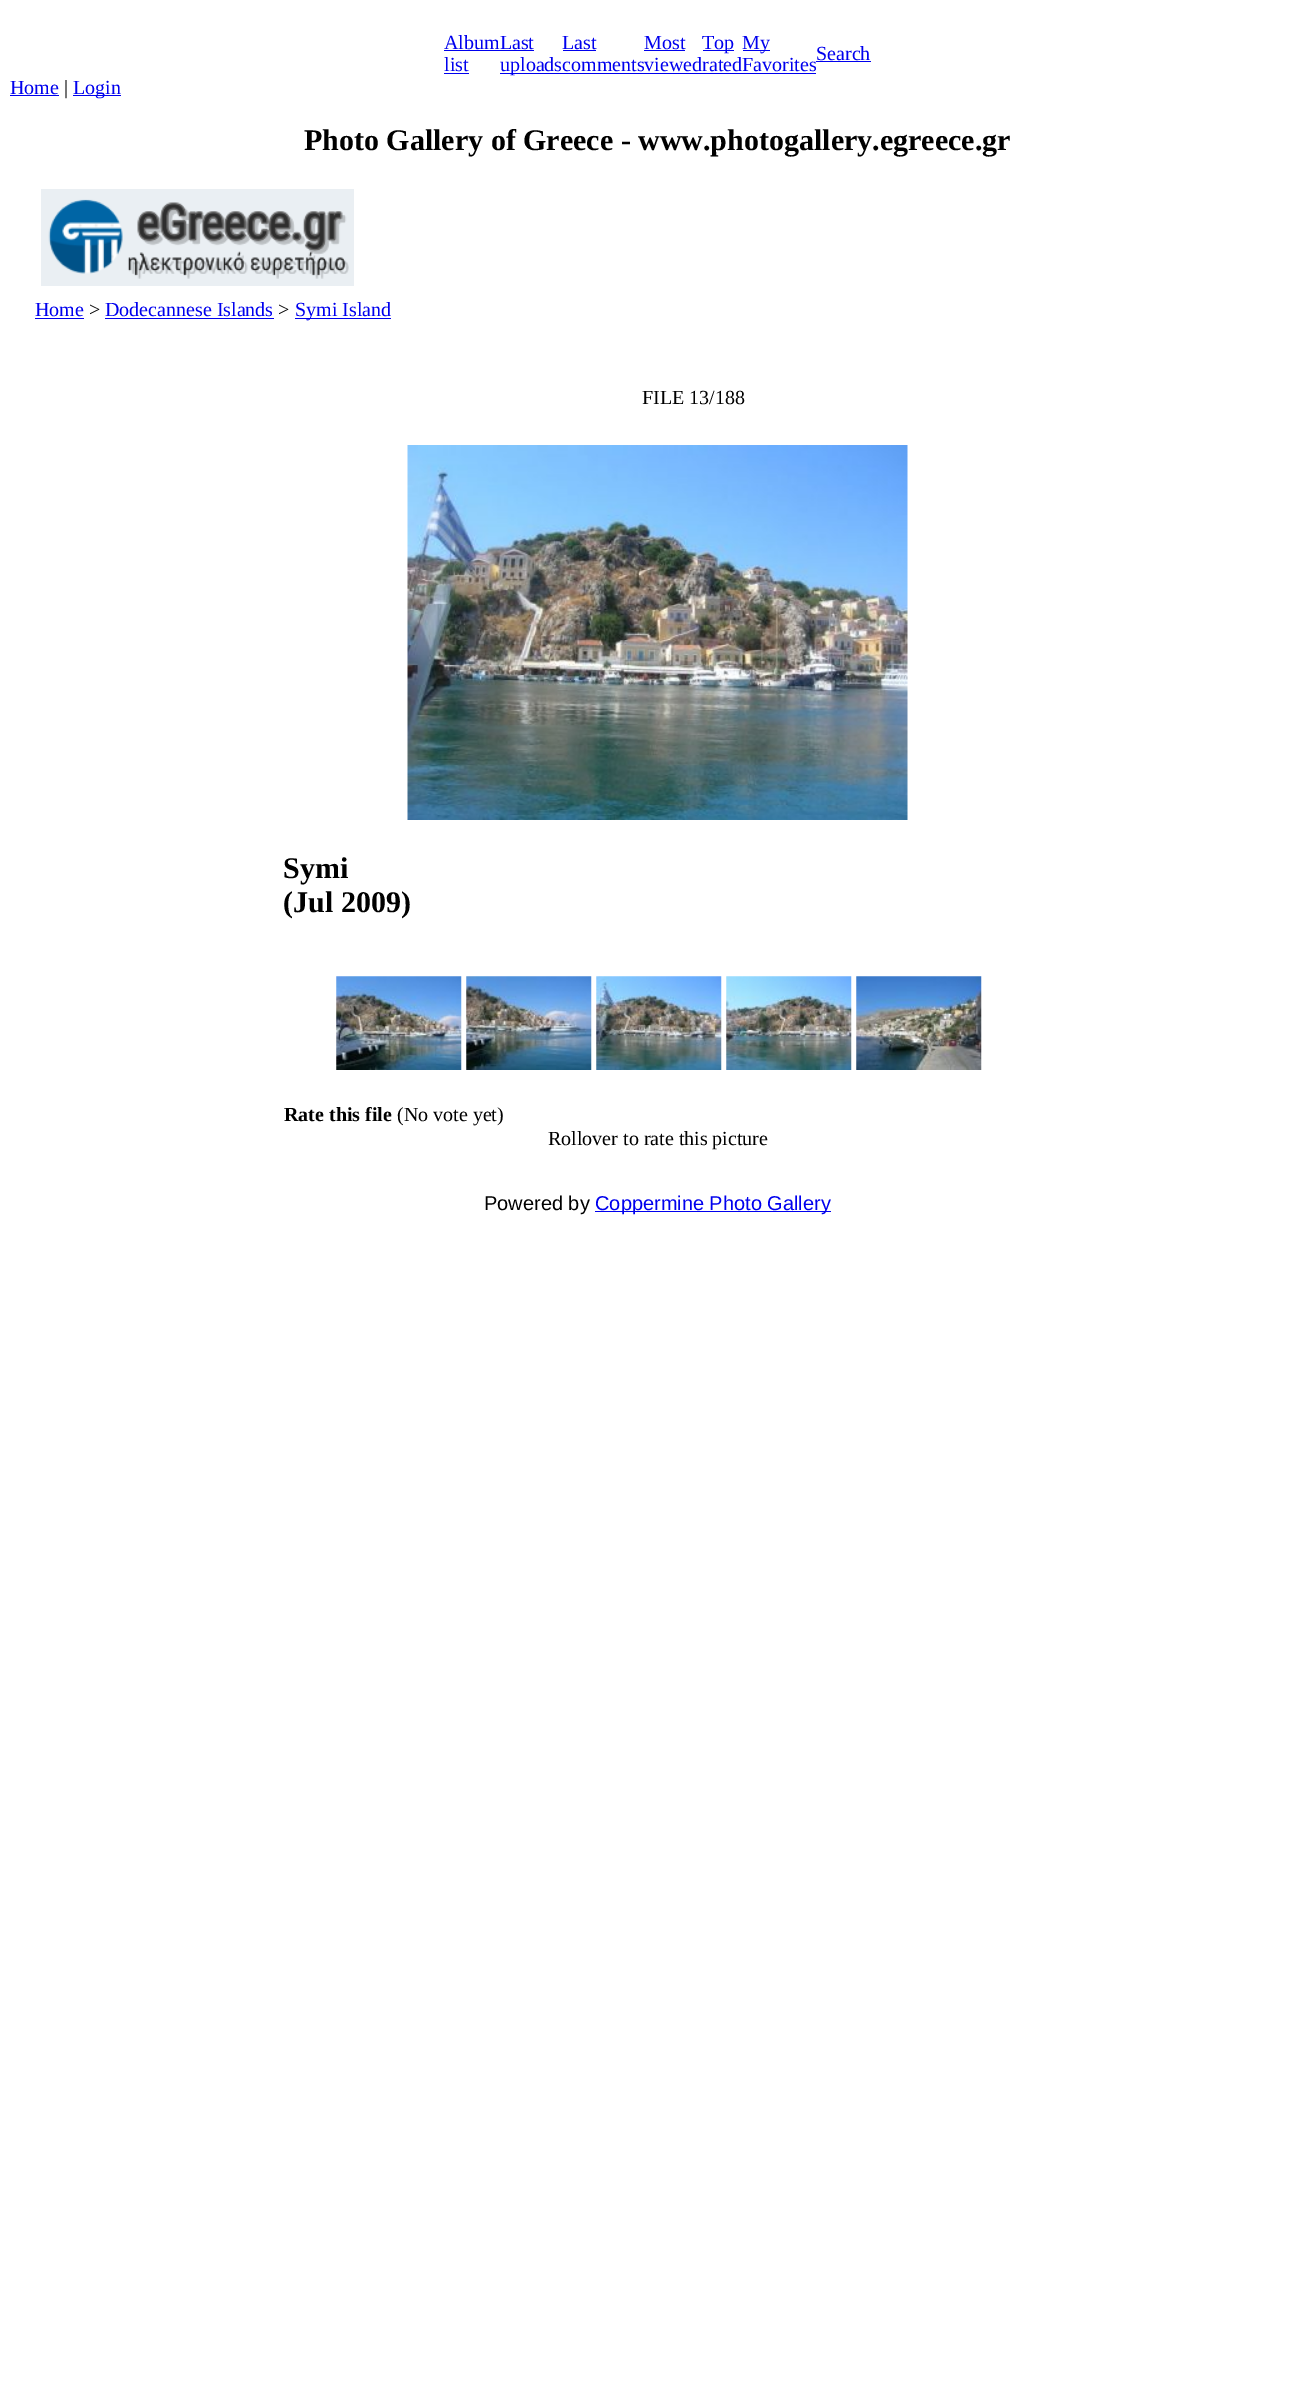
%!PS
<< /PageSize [1314 2408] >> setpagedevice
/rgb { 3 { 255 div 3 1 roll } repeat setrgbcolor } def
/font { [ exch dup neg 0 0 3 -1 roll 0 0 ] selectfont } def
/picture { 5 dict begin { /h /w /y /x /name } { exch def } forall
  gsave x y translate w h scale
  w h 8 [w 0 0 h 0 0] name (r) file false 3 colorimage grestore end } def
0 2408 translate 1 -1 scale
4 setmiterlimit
255 255 255 rgb
0 0 1314 2408 rectfill
[
  [444 50 90 1 0 0 238]
  [444 73 25 1 0 0 238]
  [563 50 33 1 0 0 238]
  [644 50 41 1 0 0 238]
  [703 50 31 1 0 0 238]
  [743 50 27 1 0 0 238]
  [816 61 55 1 0 0 238]
  [500 73 316 1 0 0 238]
  [10 95 49 1 0 0 238]
  [73 95 48 1 0 0 238]
  [41 189 313 97 234 239 243]
] { aload pop rgb rectfill } forall
(img/1.rgb) 48 199 301 80 picture
[
  [35 318 49 1 0 0 238]
  [105 318 169 1 0 0 238]
  [295 318 96 1 0 0 238]
] { aload pop rgb rectfill } forall
(img/2.rgb) 407 445 501 375 picture
(img/3.rgb) 336 976 126 94 picture
(img/4.rgb) 466 976 126 94 picture
(img/5.rgb) 596 976 126 94 picture
(img/6.rgb) 726 976 126 94 picture
(img/7.rgb) 856 976 126 94 picture
595 1211 236 1 rectfill
/LiberationSerif-Regular 20 font
[
  [(AlbumLast) 444 49]
  [(list) 444 71]
  [(Last) 562 49]
  [(Most) 644 49]
  [(Top) 702 49]
  [(My) 742 49]
  [(Search) 816 60]
  [(uploadscommentsviewedratedFavorites) 500 71]
  [(Home) 10 94]
] { aload pop moveto show } forall
0 0 0 rgb
64 94 moveto (|) show
0 0 238 rgb
73 94 moveto (Login) show
/LiberationSerif-Bold 30 font
0 0 0 rgb
304 150 moveto (Photo Gallery of Greece - www.photogallery.egreece.gr) show
/LiberationSerif-Regular 20 font
0 0 238 rgb
35 316 moveto (Home) show
0 0 0 rgb
89 316 moveto (>) show
0 0 238 rgb
105 316 moveto (Dodecannese Islands) show
0 0 0 rgb
278 316 moveto (>) show
0 0 238 rgb
295 316 moveto (Symi Island) show
0 0 0 rgb
642 404 moveto (FILE 13/188) show
/LiberationSerif-Bold 30 font
283 878 moveto (Symi) show
283 912 moveto (\(Jul 2009\)) show
/LiberationSerif-Bold 20 font
284 1121 moveto (Rate this file) show
/LiberationSerif-Regular 20 font
397 1121 moveto (\(No vote yet\)) show
548 1145 moveto (Rollover to rate this picture) show
/LiberationSans-Regular 20 font
484 1210 moveto (Powered by) show
0 0 238 rgb
595 1210 moveto (Coppermine Photo Gallery) show
showpage
